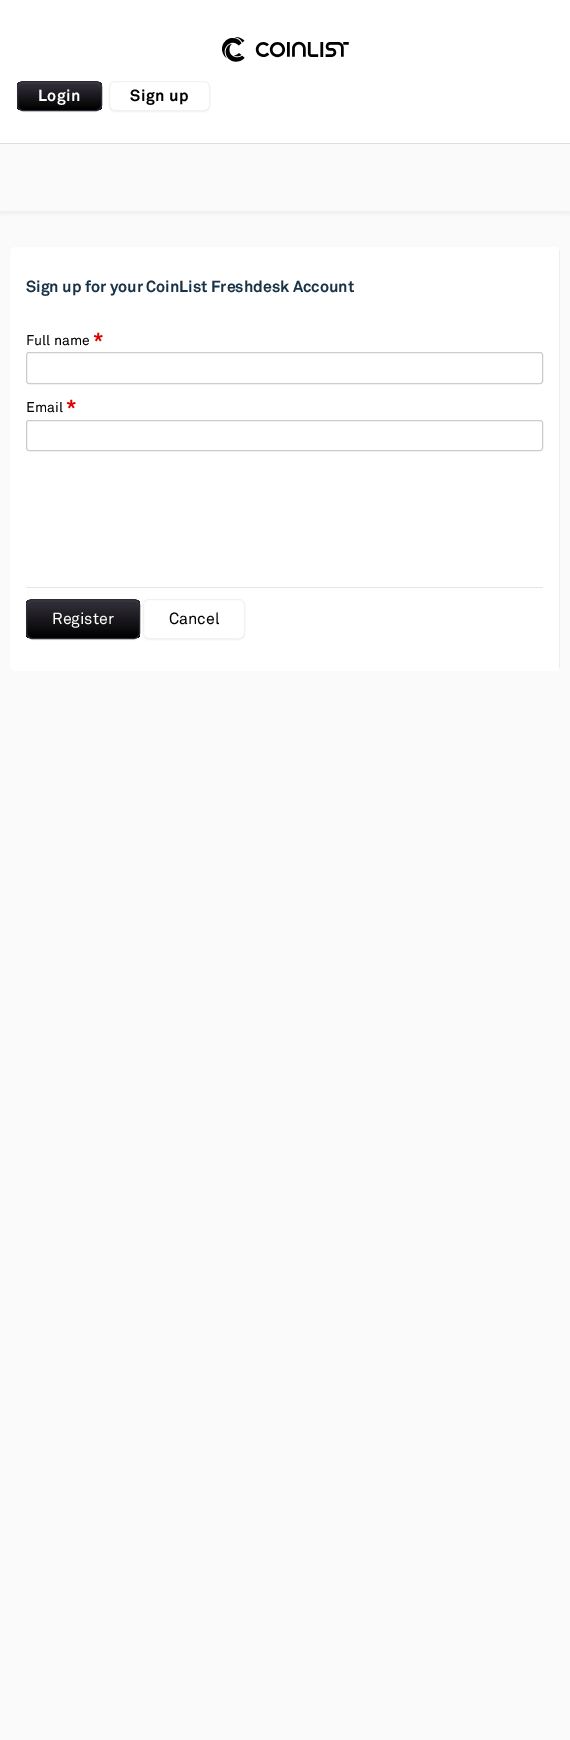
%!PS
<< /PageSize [570 1740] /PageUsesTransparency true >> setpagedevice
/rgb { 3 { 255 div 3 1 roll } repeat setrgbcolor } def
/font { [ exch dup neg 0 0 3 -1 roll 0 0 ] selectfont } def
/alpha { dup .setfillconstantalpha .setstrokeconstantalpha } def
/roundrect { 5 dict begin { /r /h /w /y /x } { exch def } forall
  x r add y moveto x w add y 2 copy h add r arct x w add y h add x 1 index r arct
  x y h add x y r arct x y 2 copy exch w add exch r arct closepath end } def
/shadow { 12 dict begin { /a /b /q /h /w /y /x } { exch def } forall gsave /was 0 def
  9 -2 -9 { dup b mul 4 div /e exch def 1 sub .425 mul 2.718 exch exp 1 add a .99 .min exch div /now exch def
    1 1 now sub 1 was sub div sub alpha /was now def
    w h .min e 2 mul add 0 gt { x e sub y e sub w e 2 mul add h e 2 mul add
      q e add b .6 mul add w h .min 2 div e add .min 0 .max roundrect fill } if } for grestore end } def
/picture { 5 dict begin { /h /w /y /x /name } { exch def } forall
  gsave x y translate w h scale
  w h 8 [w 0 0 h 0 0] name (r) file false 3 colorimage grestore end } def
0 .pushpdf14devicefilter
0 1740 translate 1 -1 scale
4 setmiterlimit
250 250 250 rgb
0 0 570 1740 rectfill
255 255 255 rgb
0 0 570 143 rectfill
218 223 227 rgb
0 143 570 1 rectfill
(img/1.rgb) 222 37 127 25 picture
22 29 37 rgb
17 82 85 30 6 0.5 0.05 shadow
gsave
17 81 85 30 6 roundrect clip newpath
gsave 17 82 moveto 102 82 lineto 102 110 lineto 17 110 lineto closepath clip newpath
<< /ShadingType 2 /ColorSpace /DeviceRGB /Coords [60 82 60 110] /Extend [true true] /Function << /FunctionType 3 /Domain [0 1] /Functions [<< /FunctionType 2 /Domain [0 1] /C0 [0.18 0.169 0.204] /C1 [0.18 0.169 0.204] /N 1 >> << /FunctionType 2 /Domain [0 1] /C0 [0.18 0.169 0.204] /C1 [0 0 0] /N 1 >> << /FunctionType 2 /Domain [0 1] /C0 [0 0 0] /C1 [0 0 0] /N 1 >>] /Bounds [0.14 0.98] /Encode [0 1 0 1 0 1] >> >> shfill grestore
grestore
56 54 62 rgb
23 84 moveto 96 84 lineto 99 84 101 86 101 89 curveto 101 79 92 82 84 82 curveto 35 82 lineto 27 82 18 79 18 89 curveto 18 86 20 84 23 84 curveto closepath fill
46 43 52 rgb
17.5 81.5 84 29 5.5 roundrect stroke
22 29 37 rgb
109 82 101 30 6 0.5 0.05 shadow
255 255 255 rgb
109.5 81.5 100 29 5.5 roundrect gsave fill grestore
242 242 242 rgb
stroke
gsave
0 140 moveto 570 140 lineto 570 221 lineto 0 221 lineto closepath 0 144 moveto 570 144 lineto 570 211 lineto 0 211 lineto closepath eoclip newpath
238 238 238 rgb
0 147 570 67 0 2 1 shadow
grestore
255 255 255 rgb
10 247 550 424 6 roundrect fill
234 237 243 rgb
559 250 1 418 rectfill
204 204 204 rgb
26.5 352.5 516 31 2.5 roundrect stroke
26.5 420.5 516 30 2.5 roundrect stroke
229 229 229 rgb
26 587 517 1 rectfill
22 29 37 rgb
26 600 114 40 6 0.5 0.05 shadow
gsave
26 599 114 40 6 roundrect clip newpath
gsave 26 600 moveto 140 600 lineto 140 638 lineto 26 638 lineto closepath clip newpath
<< /ShadingType 2 /ColorSpace /DeviceRGB /Coords [83 600 83 638] /Extend [true true] /Function << /FunctionType 3 /Domain [0 1] /Functions [<< /FunctionType 2 /Domain [0 1] /C0 [0.18 0.169 0.204] /C1 [0.18 0.169 0.204] /N 1 >> << /FunctionType 2 /Domain [0 1] /C0 [0.18 0.169 0.204] /C1 [0 0 0] /N 1 >> << /FunctionType 2 /Domain [0 1] /C0 [0 0 0] /C1 [0 0 0] /N 1 >>] /Bounds [0.14 0.98] /Encode [0 1 0 1 0 1] >> >> shfill grestore
grestore
56 54 62 rgb
32 602 moveto 134 602 lineto 137 602 139 604 139 607 curveto 139 605 lineto 139 602 137 600 134 600 curveto 32 600 lineto 29 600 27 602 27 605 curveto 27 607 lineto 27 604 29 602 32 602 curveto closepath fill
46 43 52 rgb
26.5 599.5 113 39 5.5 roundrect stroke
22 29 37 rgb
143 600 102 40 6 0.5 0.05 shadow
255 255 255 rgb
143.5 599.5 101 39 5.5 roundrect gsave fill grestore
242 242 242 rgb
stroke
/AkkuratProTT-Bold 16 font
255 255 255 rgb
38 101 moveto 0.5 0 (Login) ashow
0 0 0 rgb
130 101 moveto 0.5 0 (Sign up) ashow
24 50 71 rgb
26 292 moveto (Sign up for your CoinList Freshdesk Account) show
/AkkuratProTT-Regular 14 font
0 0 0 rgb
26 345 moveto (Full name) show
/AkkuratProTT-Bold 20 font
221 0 0 rgb
93 347 moveto (*) show
/AkkuratProTT-Regular 14 font
0 0 0 rgb
26 412 moveto (Email) show
/AkkuratProTT-Bold 20 font
221 0 0 rgb
66 414 moveto (*) show
/AkkuratProTT-Regular 16 font
255 255 255 rgb
52 624 moveto (Register) show
0 0 0 rgb
169 624 moveto (Cancel) show
.poppdf14devicefilter showpage
